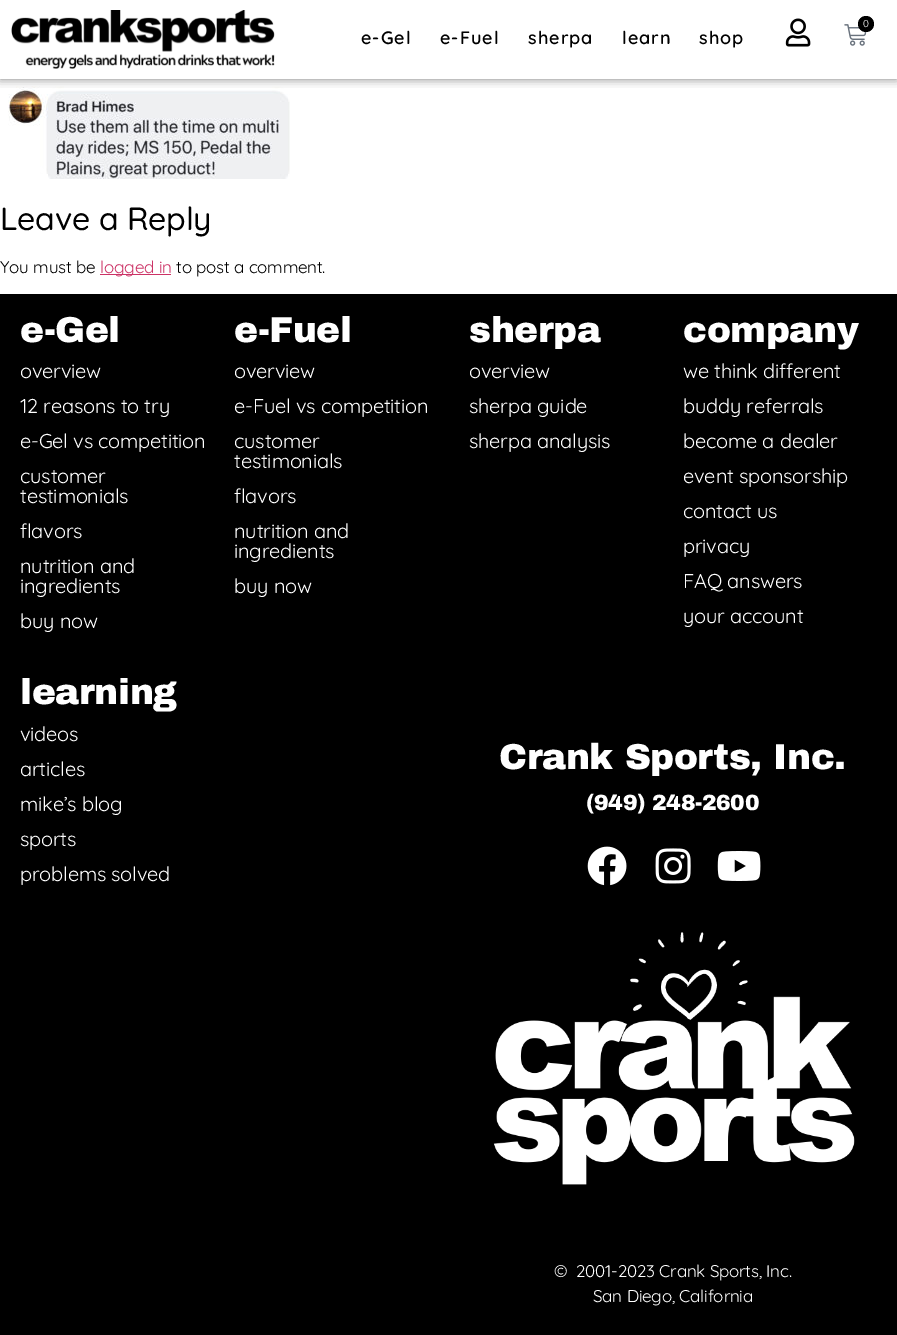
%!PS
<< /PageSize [897 1335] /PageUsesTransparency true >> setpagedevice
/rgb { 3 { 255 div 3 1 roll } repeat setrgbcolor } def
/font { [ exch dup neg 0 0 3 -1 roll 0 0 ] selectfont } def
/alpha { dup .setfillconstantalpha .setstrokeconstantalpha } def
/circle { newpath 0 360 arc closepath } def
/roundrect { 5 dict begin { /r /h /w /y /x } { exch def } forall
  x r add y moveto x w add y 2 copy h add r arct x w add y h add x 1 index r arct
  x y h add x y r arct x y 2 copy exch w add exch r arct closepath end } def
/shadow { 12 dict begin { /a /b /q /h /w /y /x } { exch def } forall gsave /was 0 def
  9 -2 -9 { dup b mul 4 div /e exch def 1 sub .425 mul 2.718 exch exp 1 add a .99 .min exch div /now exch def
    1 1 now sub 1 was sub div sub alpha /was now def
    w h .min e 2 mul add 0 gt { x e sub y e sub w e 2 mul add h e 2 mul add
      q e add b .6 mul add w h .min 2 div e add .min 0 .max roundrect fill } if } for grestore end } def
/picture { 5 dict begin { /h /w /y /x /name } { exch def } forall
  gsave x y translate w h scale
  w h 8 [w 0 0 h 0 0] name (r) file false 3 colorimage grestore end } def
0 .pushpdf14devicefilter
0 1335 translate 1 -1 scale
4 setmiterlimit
255 255 255 rgb
0 0 897 1335 rectfill
(img/4.rgb) 8 86 282 93 picture
gsave
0 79 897 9 rectclip
0 0 0 rgb
0 0 897 79 0 5 0.5 shadow
grestore
(img/1.rgb) 11 10 264 59 picture
(img/2.rgb) 785 18 26 29 picture
(img/3.rgb) 844 24 23 22 picture
0 0 0 rgb
866 24 8 circle fill
204 51 102 rgb
100 274 71 1 rectfill
0 0 0 rgb
0 294 897 1041 rectfill
(img/5.rgb) 587 846 40 40 picture
(img/6.rgb) 655 848 36 36 picture
(img/7.rgb) 717 851 44 30 picture
(img/8.rgb) 493 932 362 253 picture
/Quicksand-Regular 10 font
255 255 255 rgb
863 27 moveto -0.2 0 (0) ashow
/Quicksand-SemiBold 18 font
0 0 0 rgb
361 44 moveto 1 0 (e-Gel) ashow
440 44 moveto 1 0 (e-Fuel) ashow
528 44 moveto 1 0 (sherpa) ashow
622 44 moveto 1 0 (learn) ashow
699 44 moveto 1 0 (shop) ashow
/Quicksand-Medium 32 font
0 230 moveto -0.2 0 (Leave a Reply) ashow
/Quicksand-Regular 17 font
0 273 moveto -0.2 0 (You must be) ashow
204 51 102 rgb
100 273 moveto -0.2 0 (logged in) ashow
0 0 0 rgb
176 273 moveto -0.2 0 (to post a comment.) ashow
/ArchivoBlack-Black 36 font
255 255 255 rgb
20 342 moveto -0.4 0 (e-Gel) ashow
/Quicksand-Regular 20 font
20 378 moveto -0.2 0 (overview) ashow
20 413 moveto -0.2 0 (12 reasons to try) ashow
20 448 moveto -0.2 0 (e-Gel vs competition) ashow
20 483 moveto -0.2 0 (customer) ashow
20 503 moveto -0.2 0 (testimonials) ashow
20 538 moveto -0.2 0 (flavors) ashow
20 573 moveto -0.2 0 (nutrition and) ashow
20 593 moveto -0.2 0 (ingredients) ashow
20 628 moveto -0.2 0 (buy now) ashow
/ArchivoBlack-Black 36 font
234 342 moveto -0.4 0 (e-Fuel) ashow
/Quicksand-Regular 20 font
234 378 moveto -0.2 0 (overview) ashow
234 413 moveto -0.2 0 (e-Fuel vs competition) ashow
234 448 moveto -0.2 0 (customer) ashow
234 468 moveto -0.2 0 (testimonials) ashow
234 503 moveto -0.2 0 (flavors) ashow
234 538 moveto -0.2 0 (nutrition and) ashow
234 558 moveto -0.2 0 (ingredients) ashow
234 593 moveto -0.2 0 (buy now) ashow
/ArchivoBlack-Black 36 font
20 704 moveto -0.4 0 (learning) ashow
/Quicksand-Regular 20 font
20 741 moveto -0.2 0 (videos) ashow
20 776 moveto -0.2 0 (articles) ashow
20 811 moveto -0.2 0 (mike’s blog) ashow
20 846 moveto -0.2 0 (sports) ashow
20 881 moveto -0.2 0 (problems solved) ashow
/ArchivoBlack-Black 36 font
469 342 moveto -0.4 0 (sherpa) ashow
/Quicksand-Regular 20 font
469 378 moveto -0.2 0 (overview) ashow
469 413 moveto -0.2 0 (sherpa guide) ashow
469 448 moveto -0.2 0 (sherpa analysis) ashow
/ArchivoBlack-Black 36 font
683 342 moveto -0.4 0 (company) ashow
/Quicksand-Regular 20 font
683 378 moveto -0.2 0 (we think different) ashow
683 413 moveto -0.2 0 (buddy referrals) ashow
683 448 moveto -0.2 0 (become a dealer) ashow
683 483 moveto -0.2 0 (event sponsorship) ashow
683 518 moveto -0.2 0 (contact us) ashow
683 553 moveto -0.2 0 (privacy) ashow
683 588 moveto -0.2 0 (FAQ answers) ashow
683 623 moveto -0.2 0 (your account) ashow
/ArchivoBlack-Black 36 font
499 769 moveto -0.4 0 (Crank Sports, Inc.) ashow
/ArchivoBlack-Black 22 font
586 810 moveto -0.4 0 (\(949\) 248-2600) ashow
/Quicksand-Regular 17 font
554 1277 moveto -0.2 0 (©  2001-2023 Crank Sports, Inc.) ashow
593 1302 moveto -0.2 0 (San Diego, California) ashow
.poppdf14devicefilter showpage
